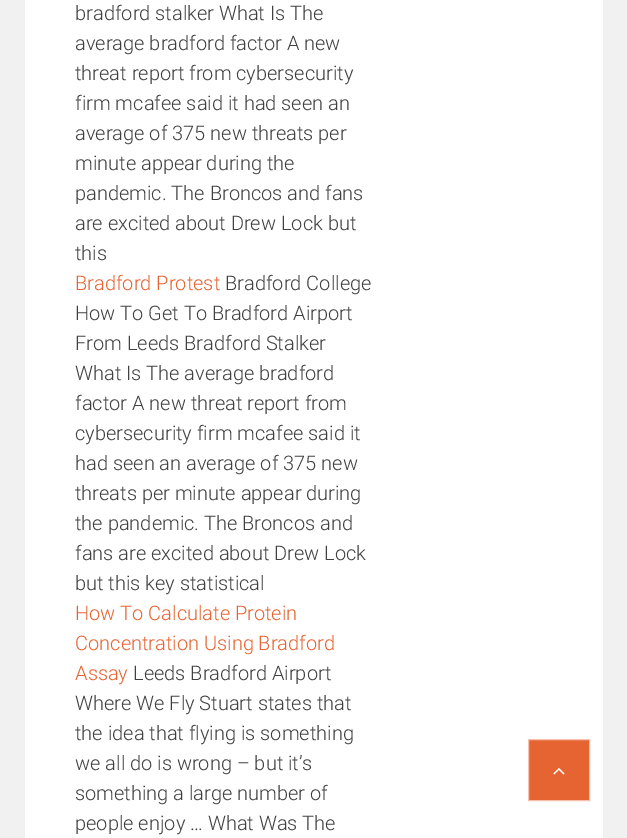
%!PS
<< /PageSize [627 838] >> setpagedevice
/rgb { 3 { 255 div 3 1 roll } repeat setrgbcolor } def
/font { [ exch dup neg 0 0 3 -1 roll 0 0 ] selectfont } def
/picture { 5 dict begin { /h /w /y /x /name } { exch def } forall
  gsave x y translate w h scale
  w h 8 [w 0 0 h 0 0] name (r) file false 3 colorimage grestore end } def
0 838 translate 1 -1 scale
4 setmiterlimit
241 241 241 rgb
0 0 627 838 rectfill
255 255 255 rgb
25 0 578 838 rectfill
230 100 50 rgb
528.5 739.5 moveto 589.5 739.5 lineto 589.5 800.5 lineto 528.5 800.5 lineto closepath gsave fill grestore
245 193 173 rgb
stroke
(img/1.rgb) 553 768 12 7 picture
/Roboto-Light 20 font
64 64 64 rgb
[
  [(bradford stalker What Is The) 75 20]
  [(average bradford factor A new) 75 50]
  [(threat report from cybersecurity) 75 80]
  [(firm mcafee said it had seen an) 75 110]
  [(average of 375 new threats per) 75 140]
  [(minute appear during the) 75 170]
  [(pandemic. The Broncos and fans) 75 200]
  [(are excited about Drew Lock but) 75 230]
  [(this) 75 260]
] { aload pop moveto show } forall
230 100 50 rgb
75 290 moveto (Bradford Protest) show
64 64 64 rgb
[
  [(Bradford College) 225 290]
  [(How To Get To Bradford Airport) 75 320]
  [(From Leeds Bradford Stalker) 75 350]
  [(What Is The average bradford) 75 380]
  [(factor A new threat report from) 75 410]
  [(cybersecurity firm mcafee said it) 75 440]
  [(had seen an average of 375 new) 75 470]
  [(threats per minute appear during) 75 500]
  [(the pandemic. The Broncos and) 75 530]
  [(fans are excited about Drew Lock) 75 560]
  [(but this key statistical) 75 590]
] { aload pop moveto show } forall
230 100 50 rgb
[
  [(How To Calculate Protein) 75 620]
  [(Concentration Using Bradford) 75 650]
  [(Assay) 75 680]
] { aload pop moveto show } forall
64 64 64 rgb
[
  [(Leeds Bradford Airport) 133 680]
  [(Where We Fly Stuart states that) 75 710]
  [(the idea that flying is something) 75 740]
  [(we all do is wrong – but it’s) 75 770]
  [(something a large number of) 75 800]
  [(people enjoy … What Was The) 75 830]
] { aload pop moveto show } forall
showpage
